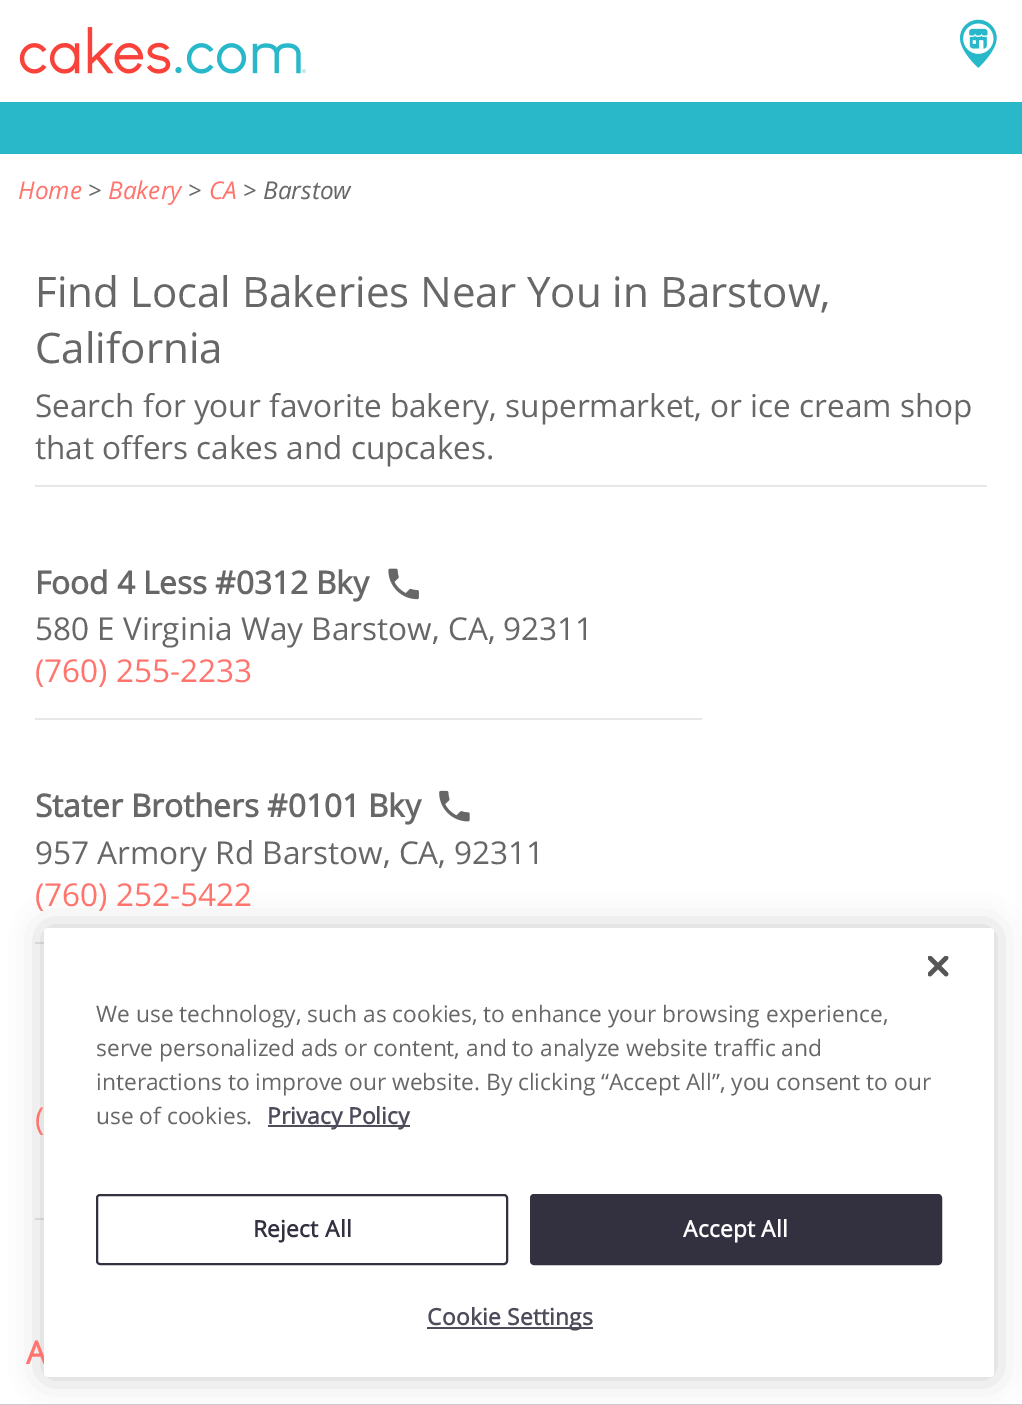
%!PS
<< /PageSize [1022 1405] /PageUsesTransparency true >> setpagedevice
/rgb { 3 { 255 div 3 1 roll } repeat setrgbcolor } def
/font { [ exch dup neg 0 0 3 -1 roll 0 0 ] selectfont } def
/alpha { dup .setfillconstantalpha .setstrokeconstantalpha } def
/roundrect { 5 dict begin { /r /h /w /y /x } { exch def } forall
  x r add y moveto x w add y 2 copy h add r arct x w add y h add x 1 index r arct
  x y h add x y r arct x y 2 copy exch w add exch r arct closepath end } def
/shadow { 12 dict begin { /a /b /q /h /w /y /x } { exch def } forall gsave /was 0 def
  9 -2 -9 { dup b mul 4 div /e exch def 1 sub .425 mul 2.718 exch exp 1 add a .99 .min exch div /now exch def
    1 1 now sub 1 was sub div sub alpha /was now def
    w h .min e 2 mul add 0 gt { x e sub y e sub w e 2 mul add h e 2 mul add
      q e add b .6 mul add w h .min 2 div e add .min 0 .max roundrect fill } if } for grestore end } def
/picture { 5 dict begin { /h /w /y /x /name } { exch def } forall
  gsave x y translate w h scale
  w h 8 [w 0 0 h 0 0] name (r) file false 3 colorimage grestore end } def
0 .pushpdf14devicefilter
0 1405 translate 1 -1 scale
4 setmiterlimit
255 255 255 rgb
0 0 1022 1405 rectfill
(img/1.rgb) 19 27 287 47 picture
(img/2.rgb) 959 19 38 49 picture
41 183 202 rgb
0 102 1022 52 rectfill
231 231 231 rgb
35 485 952 2 rectfill
(img/3.rgb) 388 568 31 32 picture
35 718 667 2 rectfill
(img/4.rgb) 439 790 31 32 picture
[
  [35 942 9 2 231 231 231]
  [35 1218 9 2 231 231 231]
  [0 1404 1022 1 204 204 204]
] { aload pop rgb rectfill } forall
0 0 0 rgb
44 928 950 449 4 16 0.2 shadow
/OpenSans-Italic 24.5 font
255 117 110 rgb
18 199 moveto (Home) show
103 103 103 rgb
88 199 moveto (>) show
255 117 110 rgb
108 199 moveto (Bakery) show
103 103 103 rgb
188 199 moveto (>) show
255 117 110 rgb
209 199 moveto (CA) show
103 103 103 rgb
243 199 moveto (>) show
263 199 moveto (Barstow) show
/OpenSans-Regular 42 font
35 307 moveto (Find Local Bakeries Near You in Barstow,) show
35 363 moveto (California) show
/OpenSans-Regular 31.5 font
35 417 moveto (Search for your favorite bakery, supermarket, or ice cream shop) show
35 459 moveto (that offers cakes and cupcakes.) show
/OpenSans-Bold 31.5 font
35 594 moveto (Food 4 Less #0312 Bky) show
/OpenSans-Regular 31.5 font
35 640 moveto (580 E Virginia Way Barstow, CA, 92311) show
255 117 110 rgb
35 682 moveto (\(760\) 255-2233) show
/OpenSans-Bold 31.5 font
103 103 103 rgb
35 817 moveto (Stater Brothers #0101 Bky) show
/OpenSans-Regular 31.5 font
35 864 moveto (957 Armory Rd Barstow, CA, 92311) show
255 117 110 rgb
35 906 moveto (\(760\) 252-5422) show
35 1130 moveto (\() show
/OpenSans-Bold 31.5 font
26 1364 moveto (A) show
255 255 255 rgb
44 928 950 449 4 roundrect fill
(img/5.rgb) 928 956 21 21 picture
78 75 91 rgb
427 1327 166 2 rectfill
/OpenSans-Bold 22.75 font
427 1325 moveto 0.25 0 (Cookie Settings) ashow
51 48 64 rgb
531 1195 410 69 3 roundrect gsave fill grestore
2 setlinewidth
stroke
255 255 255 rgb
683 1237 moveto 0.25 0 (Accept All) ashow
51 48 64 rgb
97 1195 410 69 3 roundrect stroke
253 1237 moveto 0.25 0 (Reject All) ashow
78 75 91 rgb
268 1125 142 2 rectfill
267 1124 moveto (Privacy Policy) show
/OpenSans-Regular 22.75 font
103 103 103 rgb
[
  [(use of cookies.) 96 1124]
  [(interactions to improve our website. By clicking “Accept All”, you consent to our) 96 1090]
  [(serve personalized ads or content, and to analyze website traffic and) 96 1056]
  [(We use technology, such as cookies, to enhance your browsing experience,) 96 1022]
] { aload pop moveto show } forall
.poppdf14devicefilter showpage
